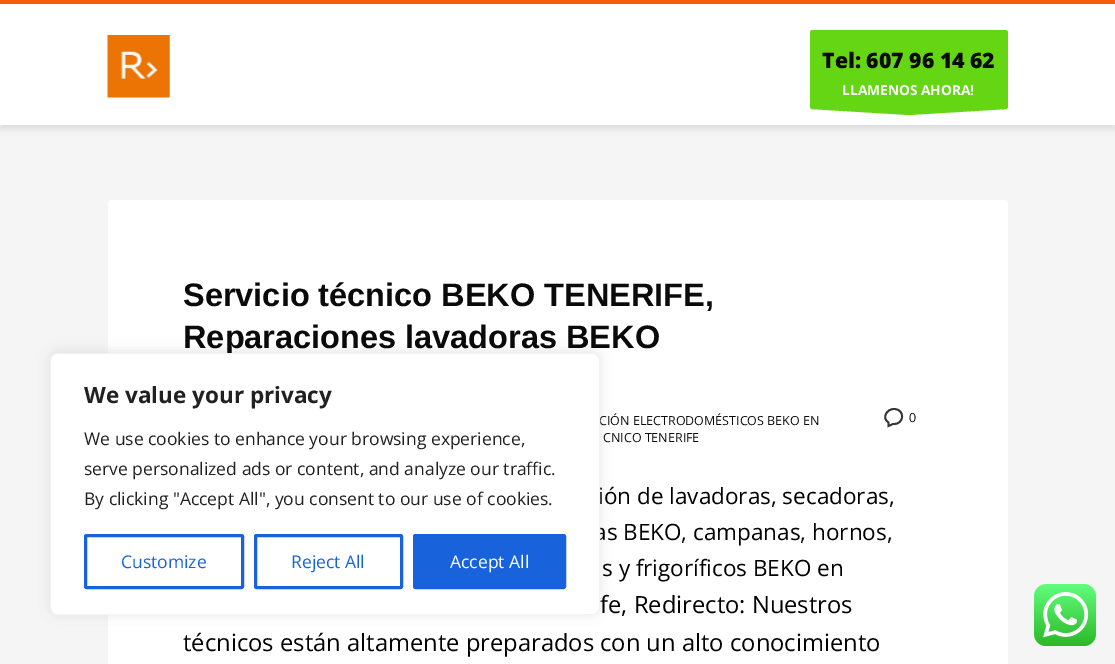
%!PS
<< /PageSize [1115 664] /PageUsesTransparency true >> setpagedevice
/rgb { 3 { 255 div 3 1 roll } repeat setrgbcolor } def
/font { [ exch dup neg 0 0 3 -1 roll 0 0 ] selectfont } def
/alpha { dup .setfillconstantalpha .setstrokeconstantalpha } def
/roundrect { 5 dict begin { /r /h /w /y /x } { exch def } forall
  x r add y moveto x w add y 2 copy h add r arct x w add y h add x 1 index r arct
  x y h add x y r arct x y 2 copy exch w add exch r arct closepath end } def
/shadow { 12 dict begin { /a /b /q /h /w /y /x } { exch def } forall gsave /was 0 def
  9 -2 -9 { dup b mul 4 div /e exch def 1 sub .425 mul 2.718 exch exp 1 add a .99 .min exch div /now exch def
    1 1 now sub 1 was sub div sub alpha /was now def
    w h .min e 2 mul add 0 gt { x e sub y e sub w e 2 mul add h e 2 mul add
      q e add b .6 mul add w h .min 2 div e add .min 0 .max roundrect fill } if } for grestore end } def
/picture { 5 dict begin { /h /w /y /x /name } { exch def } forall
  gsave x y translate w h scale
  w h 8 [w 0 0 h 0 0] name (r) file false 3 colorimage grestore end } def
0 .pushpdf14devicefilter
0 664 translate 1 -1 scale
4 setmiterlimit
245 245 245 rgb
0 0 1115 664 rectfill
0 0 0 rgb
0 4 1115 125 0 3 0.1 shadow
255 255 255 rgb
0 4 1115 121 rectfill
247 90 12 rgb
0 0 1115 4 rectfill
(img/1.rgb) 107 35 63 63 picture
100 214 19 rgb
810 30 198 79 2.5 roundrect fill
1008 109 moveto 909 115 lineto 810 109 lineto closepath eofill
255 255 255 rgb
108 200 900 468 4 roundrect fill
52 52 52 rgb
1.8 setlinewidth
894 409 moveto 886.5 409 881.5 418 888.5 422.5 curveto 888.5 426 lineto 893 424 lineto 904.5 425 905.5 409 894 409 curveto closepath stroke
172 171 171 rgb
50 351 550 263 8 6 0.3 shadow
(img/2.rgb) 1034 584 62 62 picture
/OpenSans-ExtraBold 21.25 font
10 10 10 rgb
822 68 moveto (Tel: 607 96 14 62) show
/OpenSans-Bold 13.75 font
255 255 255 rgb
842 95 moveto (LLAMENOS AHORA!) show
/LiberationSans-Bold 32.5 font
10 10 10 rgb
183 306 moveto (Servicio técnico BEKO TENERIFE,) show
183 348 moveto (Reparaciones lavadoras BEKO) show
/OpenSans-Regular 12.5 font
[
  [(CIÓN ELECTRODOMÉSTICOS BEKO EN) 599 425]
  [(CNICO TENERIFE) 603 442]
  [(0) 909 422]
] { aload pop moveto show } forall
/OpenSans-Regular 22.5 font
0 0 0 rgb
[
  [(ión de lavadoras, secadoras,) 598 504]
  [(as BEKO, campanas, hornos,) 594 540]
  [(s y frigoríficos BEKO en) 602 576]
] { aload pop moveto show } forall
/OpenSans-Regular 23.75 font
600 613 moveto (fe, Redirecto: Nuestros) show
183 651 moveto (técnicos están altamente preparados con un alto conocimiento) show
255 255 255 rgb
50.5 353.5 549 261 7.5 roundrect gsave fill grestore
244 244 244 rgb
1 setlinewidth
stroke
/OpenSans-Bold 22.5 font
33 33 33 rgb
84 403 moveto (We value your privacy) show
/OpenSans-Regular 17.5 font
[
  [(We use cookies to enhance your browsing experience,) 84 445]
  [(serve personalized ads or content, and analyze our traffic.) 84 475]
  [(By clicking "Accept All", you consent to our use of cookies.) 84 505]
] { aload pop moveto show } forall
24 99 220 rgb
3 setlinewidth
85.5 535.5 157 52 1 roundrect stroke
121 568 moveto (Customize) show
255.5 535.5 146 52 1 roundrect stroke
291 568 moveto (Reject All) show
414.5 535.5 150 52 1 roundrect gsave fill grestore
stroke
255 255 255 rgb
450 568 moveto (Accept All) show
.poppdf14devicefilter showpage
